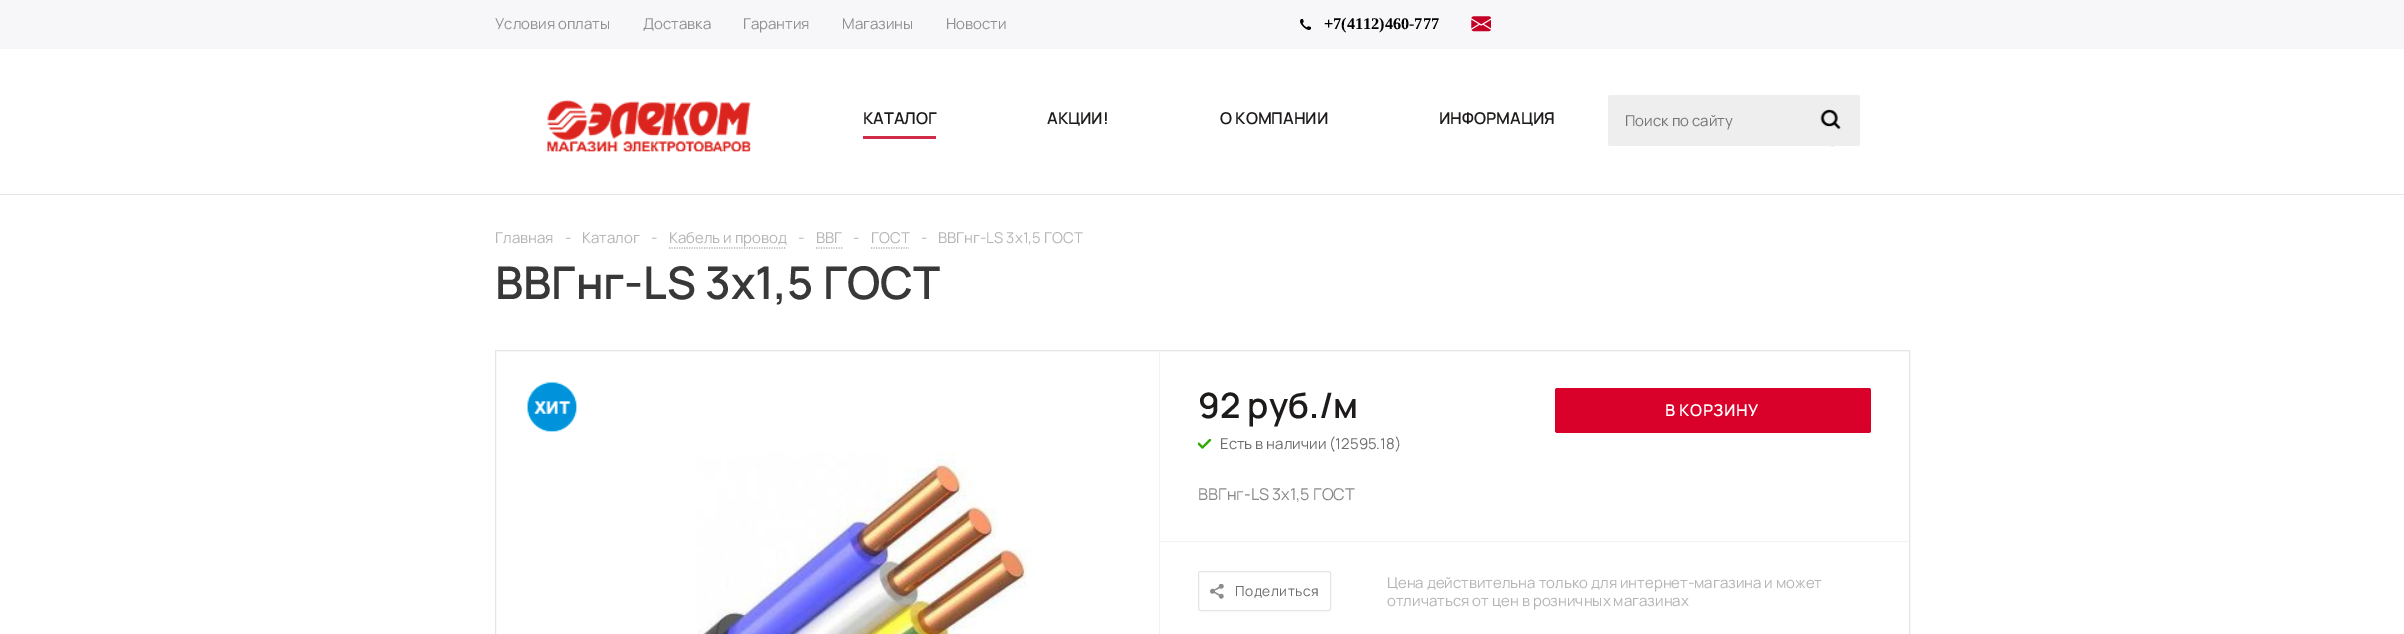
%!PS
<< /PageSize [2404 634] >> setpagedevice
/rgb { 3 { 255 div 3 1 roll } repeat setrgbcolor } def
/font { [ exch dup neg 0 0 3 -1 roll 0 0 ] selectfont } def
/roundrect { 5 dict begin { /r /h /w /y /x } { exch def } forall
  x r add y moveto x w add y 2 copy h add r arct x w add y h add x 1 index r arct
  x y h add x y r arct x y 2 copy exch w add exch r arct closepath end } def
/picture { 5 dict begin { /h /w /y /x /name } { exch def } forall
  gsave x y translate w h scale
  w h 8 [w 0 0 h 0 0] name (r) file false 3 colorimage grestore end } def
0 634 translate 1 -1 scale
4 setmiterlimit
255 255 255 rgb
0 0 2404 634 rectfill
247 247 249 rgb
0 0 2404 49 rectfill
(img/1.rgb) 1300 19 11 11 picture
(img/2.rgb) 1471 16 20 16 picture
229 229 229 rgb
0 194 2404 1 rectfill
(img/3.rgb) 547 100 204 52 picture
208 44 71 rgb
863 136 73 3 rectfill
238 238 238 rgb
1608 95 252 51 2.5 roundrect fill
(img/4.rgb) 1820 109 21 38 picture
180 180 180 rgb
1.2 setlinewidth
[1.25 1.25] 0 setdash
669 248 moveto 786 248 lineto stroke
816 248 moveto 842.5 248 lineto stroke
871 248 moveto 909 248 lineto stroke
229 229 229 rgb
1 setlinewidth
[] 0 setdash
495.5 350.5 1414 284 rectstroke
(img/5.rgb) 527 382 51 50 picture
(img/6.rgb) 697 451 334 183 picture
242 242 242 rgb
1159 351 1 283 rectfill
1160 541 749 1 rectfill
(img/7.rgb) 1198 439 14 10 picture
217 0 42 rgb
1555 388 316 45 2.5 roundrect fill
229 229 229 rgb
1198.5 571.5 132 39 2 roundrect stroke
(img/8.rgb) 1210 584 14 15 picture
/Manrope-Regular 15 font
145 145 145 rgb
[
  [(Условия оплаты) 495 29]
  [(Доставка) 643 29]
  [(Гарантия) 743 29]
  [(Магазины) 842 29]
  [(Новости) 946 29]
] { aload pop moveto show } forall
/LiberationSerif-Bold 16.25 font
0 0 0 rgb
1324 29 moveto (+7\(4112\)460-777) show
/Manrope-SemiBold 16.25 font
29 26 26 rgb
[
  [(КАТАЛОГ) 863 124]
  [(АКЦИИ!) 1047 124]
  [(О КОМПАНИИ) 1220 124]
  [(ИНФОРМАЦИЯ) 1439 124]
] { aload pop moveto show } forall
/Manrope-Regular 15 font
117 117 117 rgb
1625 126 moveto (Поиск по сайту) show
182 181 181 rgb
[
  [(Главная) 495 243]
  [(-) 565 243]
  [(Каталог) 582 243]
  [(-) 651 243]
  [(Кабель и провод) 669 243]
  [(-) 798 243]
  [(ВВГ) 816 243]
  [(-) 853 243]
  [(ГОСТ) 871 243]
  [(-) 921 243]
  [(ВВГнг-LS 3х1,5 ГОСТ) 938 243]
] { aload pop moveto show } forall
/Manrope-SemiBold 45 font
56 56 56 rgb
495 299 moveto (ВВГнг-LS 3х1,5 ГОСТ) show
/Manrope-SemiBold 35 font
29 26 26 rgb
1198 418 moveto (92 руб./м) show
/Manrope-Regular 15 font
109 109 109 rgb
1220 449 moveto (Есть в наличии \(12595.18\)) show
/Manrope-SemiBold 16.25 font
255 255 255 rgb
1665 416 moveto 0.5 0 (В КОРЗИНУ) ashow
/Manrope-Regular 16.25 font
136 136 136 rgb
1198 500 moveto (ВВГнг-LS 3х1,5 ГОСТ) show
/Manrope-Regular 13.75 font
109 109 109 rgb
1235 596 moveto 0.5 0 (Поделиться) ashow
/Manrope-Regular 15 font
182 181 181 rgb
1387 588 moveto (Цена действительна только для интернет-магазина и может) show
1387 606 moveto (отличаться от цен в розничных магазинах) show
showpage
